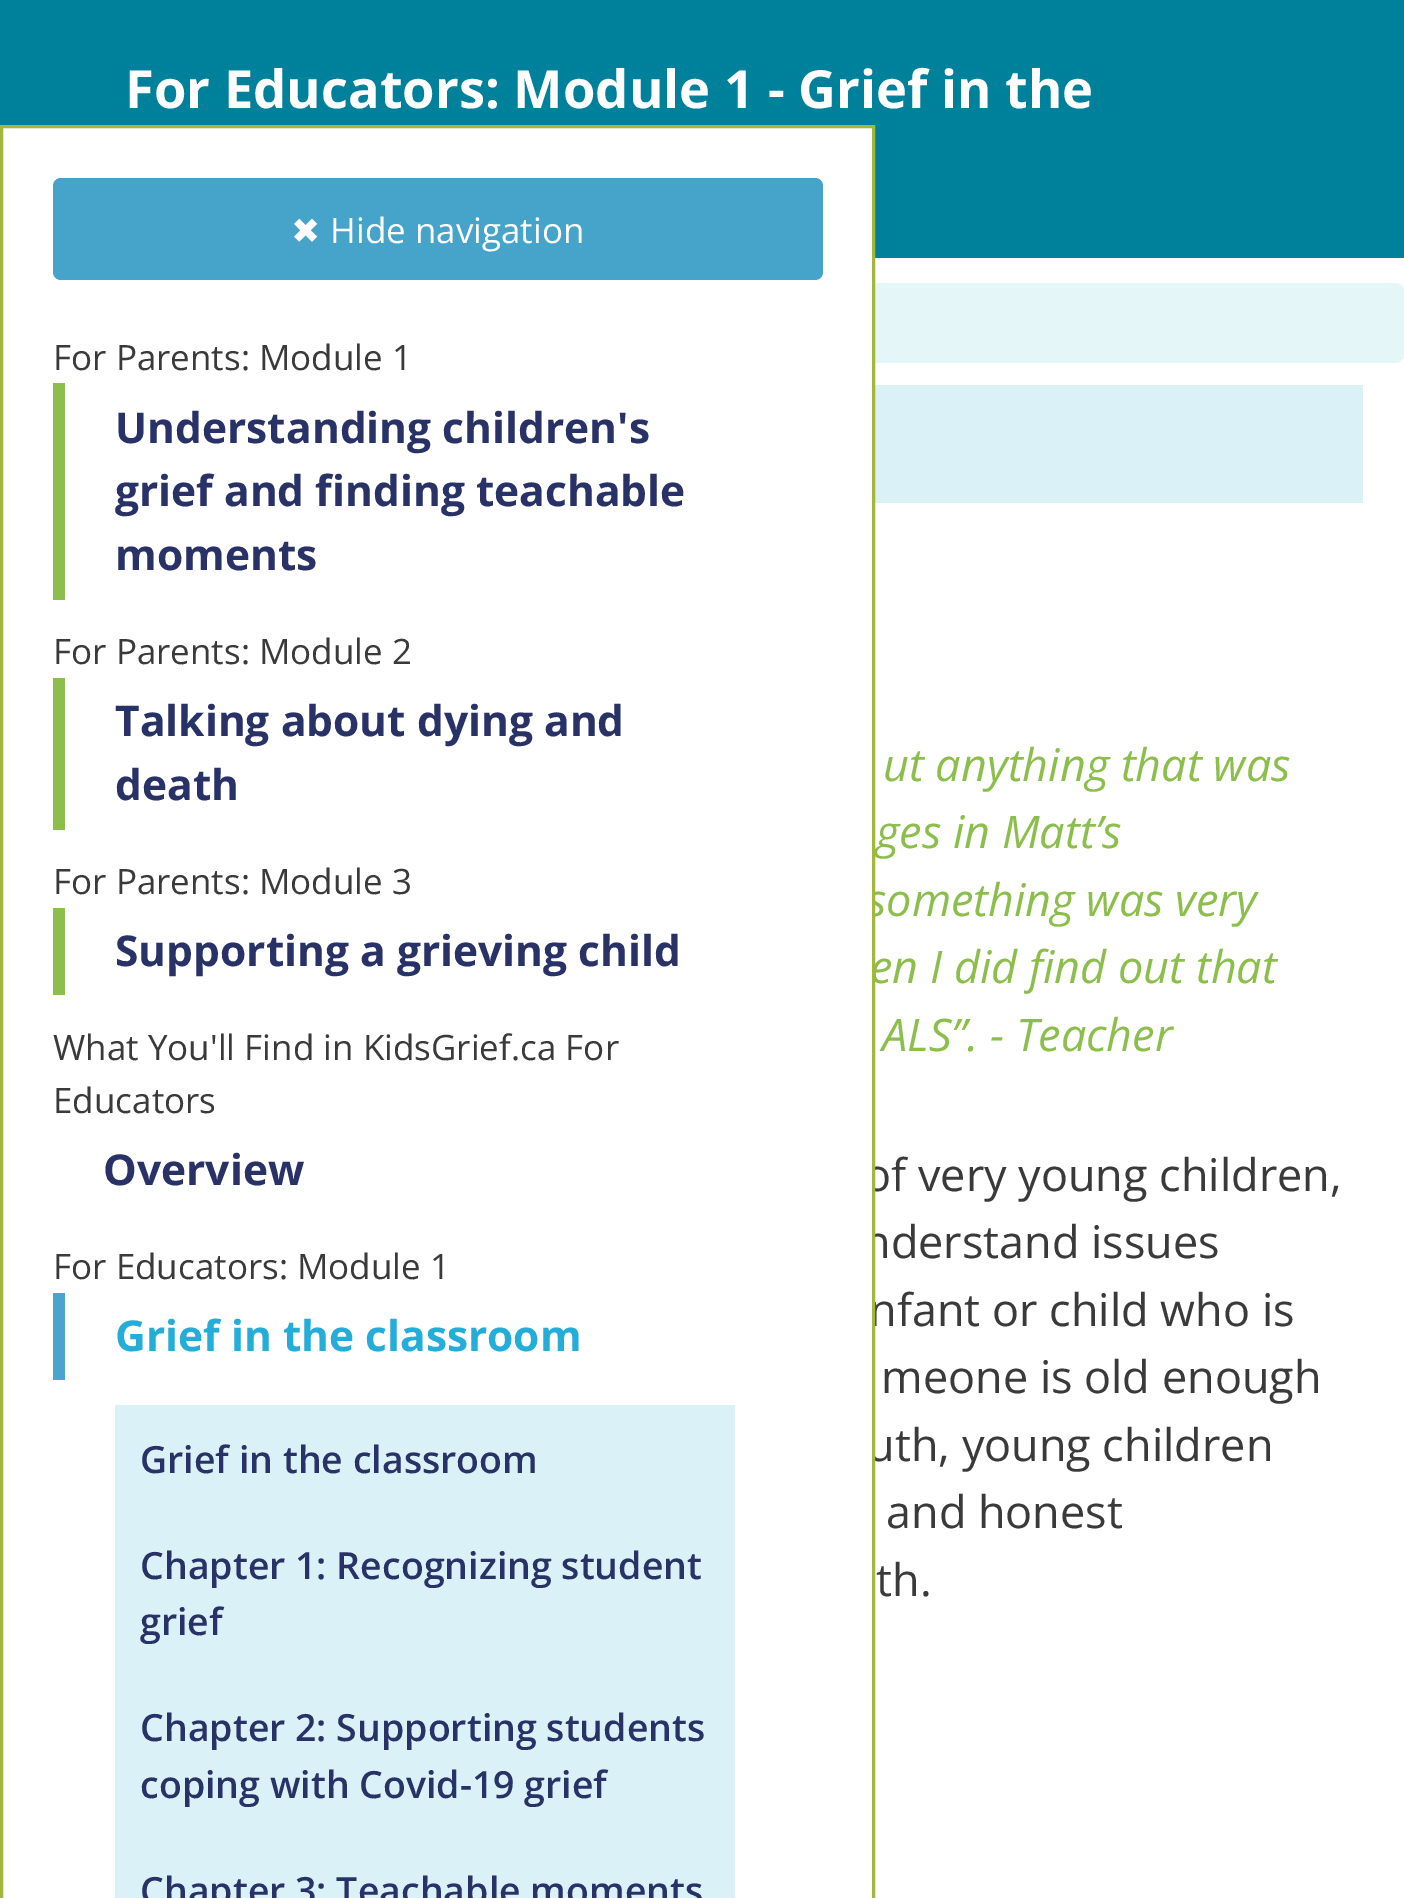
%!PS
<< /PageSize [1404 1898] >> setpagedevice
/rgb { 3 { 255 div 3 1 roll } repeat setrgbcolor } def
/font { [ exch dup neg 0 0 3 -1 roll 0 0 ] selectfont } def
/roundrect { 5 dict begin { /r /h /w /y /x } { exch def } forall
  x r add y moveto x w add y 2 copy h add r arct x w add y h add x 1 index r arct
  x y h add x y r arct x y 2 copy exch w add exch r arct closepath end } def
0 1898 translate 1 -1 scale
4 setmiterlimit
255 255 255 rgb
0 0 1404 1898 rectfill
0 129 155 rgb
0 0 1404 258 rectfill
228 246 248 rgb
0 283 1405 80 10 roundrect fill
218 241 247 rgb
875 385 488 118 rectfill
/OpenSans-Bold 52.5 font
255 255 255 rgb
125 108 moveto (For Educators: Module 1 - Grief in the) show
/OpenSans-Italic 45 font
139 190 74 rgb
[
  [(ut anything that was) 883 781]
  [(ges in Matt’s) 876 848]
  [(something was very) 867 916]
  [(en I did find out that) 870 983]
  [(ALS”. - Teacher) 882 1051]
] { aload pop moveto show } forall
/OpenSans-Regular 45 font
58 58 58 rgb
[
  [(of very young children,) 864 1191]
  [(nderstand issues) 863 1258]
  [(nfant or child who is) 869 1326]
  [(meone is old enough) 881 1393]
  [(uth, young children) 867 1461]
] { aload pop moveto show } forall
255 255 255 rgb
3 128 869 1331 rectfill
163 183 60 rgb
3 setlinewidth
1.5 126.5 872 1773 rectstroke
218 241 247 rgb
115 1405 620 493 rectfill
/OpenSans-SemiBold 37.5 font
41 50 103 rgb
[
  [(Chapter 3: Teachable moments) 140 1904]
  [(coping with Covid-19 grief) 140 1798]
  [(Chapter 2: Supporting students) 140 1741]
  [(grief) 140 1635]
  [(Chapter 1: Recognizing student) 140 1579]
  [(Grief in the classroom) 140 1473]
] { aload pop moveto show } forall
/OpenSans-Bold 42.5 font
37 173 218 rgb
115 1351 moveto (Grief in the classroom) show
/OpenSans-Regular 35 font
58 58 58 rgb
53 1279 moveto (For Educators: Module 1) show
/OpenSans-Bold 42.5 font
41 50 103 rgb
103 1185 moveto (Overview) show
/OpenSans-Regular 35 font
58 58 58 rgb
53 1113 moveto (Educators) show
53 1060 moveto (What You'll Find in KidsGrief.ca For) show
/OpenSans-Bold 42.5 font
41 50 103 rgb
115 966 moveto (Supporting a grieving child) show
/OpenSans-Regular 35 font
58 58 58 rgb
53 894 moveto (For Parents: Module 3) show
/OpenSans-Bold 42.5 font
41 50 103 rgb
115 800 moveto (death) show
115 736 moveto (Talking about dying and) show
/OpenSans-Regular 35 font
58 58 58 rgb
53 664 moveto (For Parents: Module 2) show
/OpenSans-Bold 42.5 font
41 50 103 rgb
[
  [(moments) 115 570]
  [(grief and finding teachable) 115 506]
  [(Understanding children's) 115 443]
] { aload pop moveto show } forall
/OpenSans-Regular 35 font
58 58 58 rgb
53 370 moveto (For Parents: Module 1) show
70 164 203 rgb
53 178 770 102 8 roundrect fill
255 255 255 rgb
330 243 moveto (Hide navigation) show
/DejaVuSans-Regular 35 font
291 243 moveto (✖) show
[
  [53 1293 12 87 73 164 207]
  [53 908 12 87 139 190 74]
  [53 678 12 152 139 190 74]
  [53 383 12 217 139 190 74]
] { aload pop rgb rectfill } forall
/OpenSans-Regular 45 font
58 58 58 rgb
886 1528 moveto (and honest) show
876 1596 moveto (th.) show
showpage
